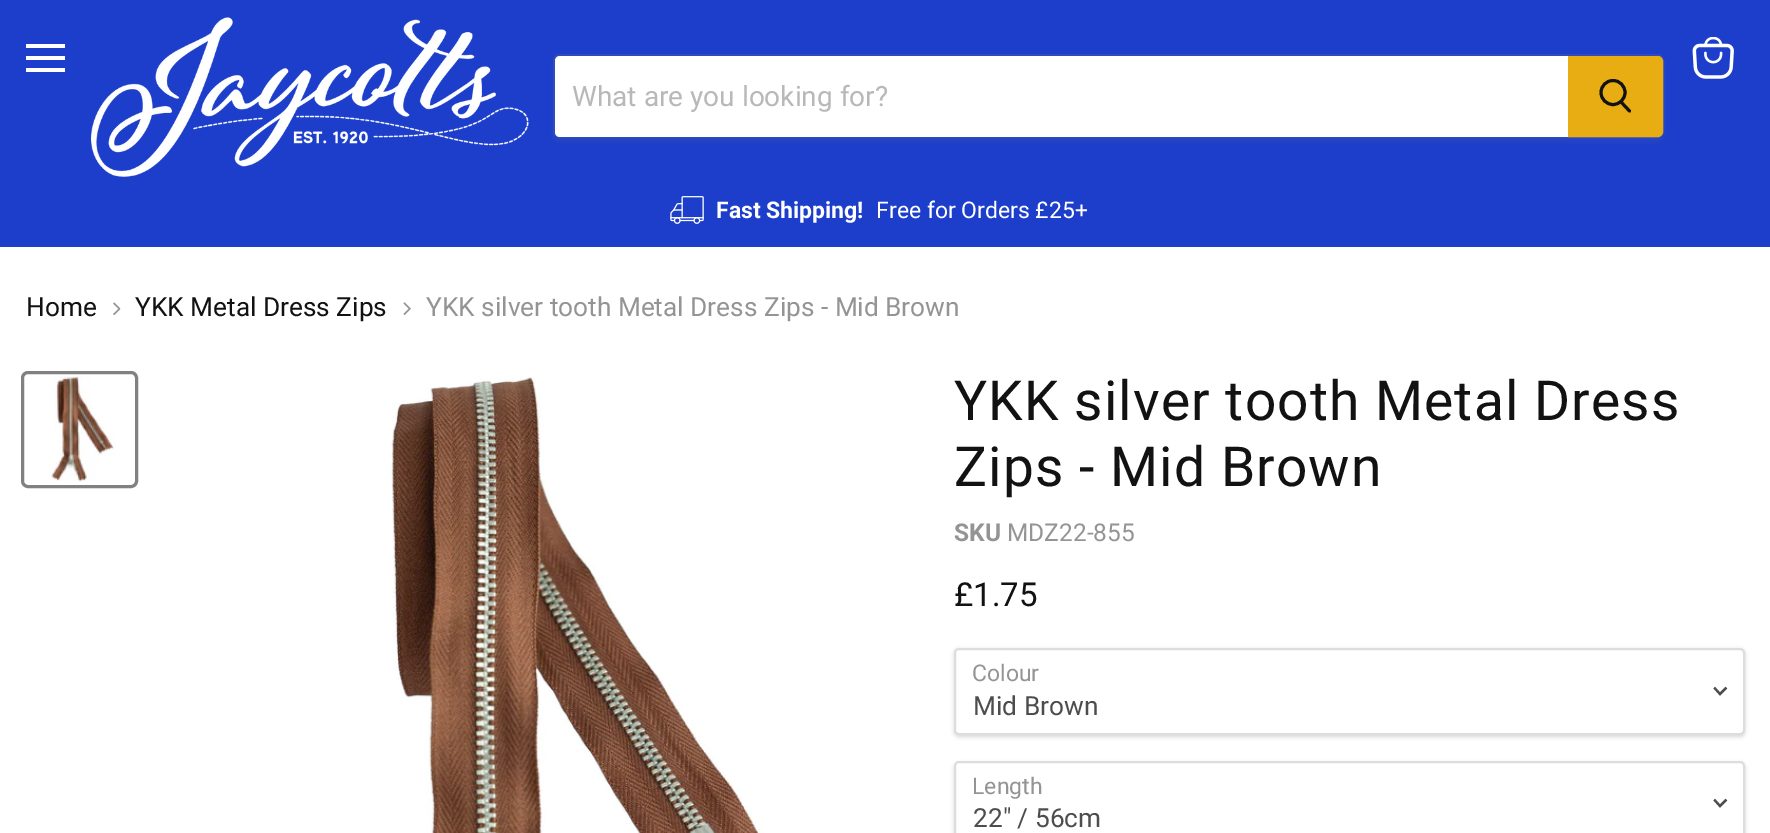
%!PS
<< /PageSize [1770 833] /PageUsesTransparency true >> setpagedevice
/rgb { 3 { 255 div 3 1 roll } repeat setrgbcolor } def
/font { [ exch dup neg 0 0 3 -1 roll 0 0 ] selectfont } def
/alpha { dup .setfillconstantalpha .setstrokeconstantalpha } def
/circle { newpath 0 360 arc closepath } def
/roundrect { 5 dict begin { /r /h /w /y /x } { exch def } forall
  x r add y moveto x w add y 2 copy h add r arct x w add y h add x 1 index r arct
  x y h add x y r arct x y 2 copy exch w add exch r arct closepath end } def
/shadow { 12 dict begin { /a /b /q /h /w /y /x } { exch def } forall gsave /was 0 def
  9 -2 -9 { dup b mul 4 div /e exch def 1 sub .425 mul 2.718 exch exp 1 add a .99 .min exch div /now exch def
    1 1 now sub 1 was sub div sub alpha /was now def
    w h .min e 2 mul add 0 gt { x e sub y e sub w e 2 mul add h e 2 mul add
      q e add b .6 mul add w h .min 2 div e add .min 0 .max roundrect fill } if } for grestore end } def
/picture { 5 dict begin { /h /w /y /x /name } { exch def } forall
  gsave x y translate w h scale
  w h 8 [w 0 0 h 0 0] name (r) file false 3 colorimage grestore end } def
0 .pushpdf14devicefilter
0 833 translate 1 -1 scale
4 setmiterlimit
255 255 255 rgb
0 0 1770 833 rectfill
[
  [0 0 1770 247 28 62 202]
  [26 44 39 4 255 255 255]
  [26 56 39 4 255 255 255]
  [26 68 39 4 255 255 255]
] { aload pop rgb rectfill } forall
(img/1.rgb) 1692 37 42 42 picture
(img/2.rgb) 91 17 438 160 picture
128 128 128 rgb
553 58 1111 84 7 2.5 0.11 shadow
48 75 187 rgb
2 setlinewidth
554 55 1109 82 6 roundrect stroke
255 255 255 rgb
560 56 moveto 1568 56 lineto 1568 137 lineto 560 137 lineto 557 137 555 135 555 132 curveto 555 61 lineto 555 58 557 56 560 56 curveto closepath fill
233 173 20 rgb
1569 57 moveto 1658 57 lineto 1660 57 1662 59 1662 61 curveto 1662 132 lineto 1662 134 1660 136 1658 136 curveto 1569 136 lineto closepath gsave fill grestore
stroke
18 18 18 rgb
3 setlinewidth
1 setlinecap
1629.5 111 moveto 1621.5 102.5 lineto stroke
0 setlinecap
1613 92.5 12 circle stroke
(img/3.rgb) 670 196 34 28 picture
(img/4.rgb) 113 302 8 13 picture
(img/5.rgb) 403 302 8 13 picture
129 129 129 rgb
22.5 372.5 114 114 5.5 roundrect stroke
(img/6.rgb) 49 376 67 106 picture
(img/7.rgb) 390 377 374 456 picture
0 0 0 rgb
954 649 791 88 5 2 0.15 shadow
255 255 255 rgb
955 649 789 85 4 roundrect gsave fill grestore
221 221 221 rgb
2 setlinewidth
stroke
77 77 77 rgb
2.2 setlinewidth
2 setlinecap
1720 694 moveto 1725.5 688.5 lineto 1720 694 moveto 1715 688.5 lineto stroke
0 0 0 rgb
954 763 791 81 5 2 0.15 shadow
255 255 255 rgb
955 762 789 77 4 roundrect gsave fill grestore
221 221 221 rgb
2 setlinewidth
0 setlinecap
stroke
77 77 77 rgb
2.2 setlinewidth
2 setlinecap
1720 806 moveto 1725.5 800.5 lineto 1720 806 moveto 1715 800.5 lineto stroke
/Roboto-Regular 28 font
184 184 184 rgb
572 106 moveto (What are you looking for?) show
/Roboto-Bold 23 font
255 255 255 rgb
716 218 moveto (Fast Shipping!) show
/Roboto-Regular 23 font
876 218 moveto (Free for Orders £25+) show
/Roboto-Regular 26.25 font
18 18 18 rgb
26 316 moveto (Home) show
135 316 moveto (YKK Metal Dress Zips) show
148 148 148 rgb
426 316 moveto (YKK silver tooth Metal Dress Zips - Mid Brown) show
/Roboto-Regular 55.1 font
18 18 18 rgb
954 420 moveto 1.1 0 (YKK silver tooth Metal Dress) ashow
954 486 moveto 1.1 0 (Zips - Mid Brown) ashow
/Roboto-Bold 24.5 font
148 148 148 rgb
954 541 moveto (SKU) show
/Roboto-Regular 24.5 font
1007 541 moveto (MDZ22-855) show
/Roboto-Regular 33 font
18 18 18 rgb
954 606 moveto (£1.75) show
/Roboto-Regular 23 font
148 148 148 rgb
972 681 moveto (Colour) show
/Roboto-Regular 26.25 font
77 77 77 rgb
973 715 moveto (Mid Brown) show
/Roboto-Regular 23 font
148 148 148 rgb
972 794 moveto (Length) show
/Roboto-Regular 26.25 font
77 77 77 rgb
973 827 moveto (22" / 56cm) show
.poppdf14devicefilter showpage
